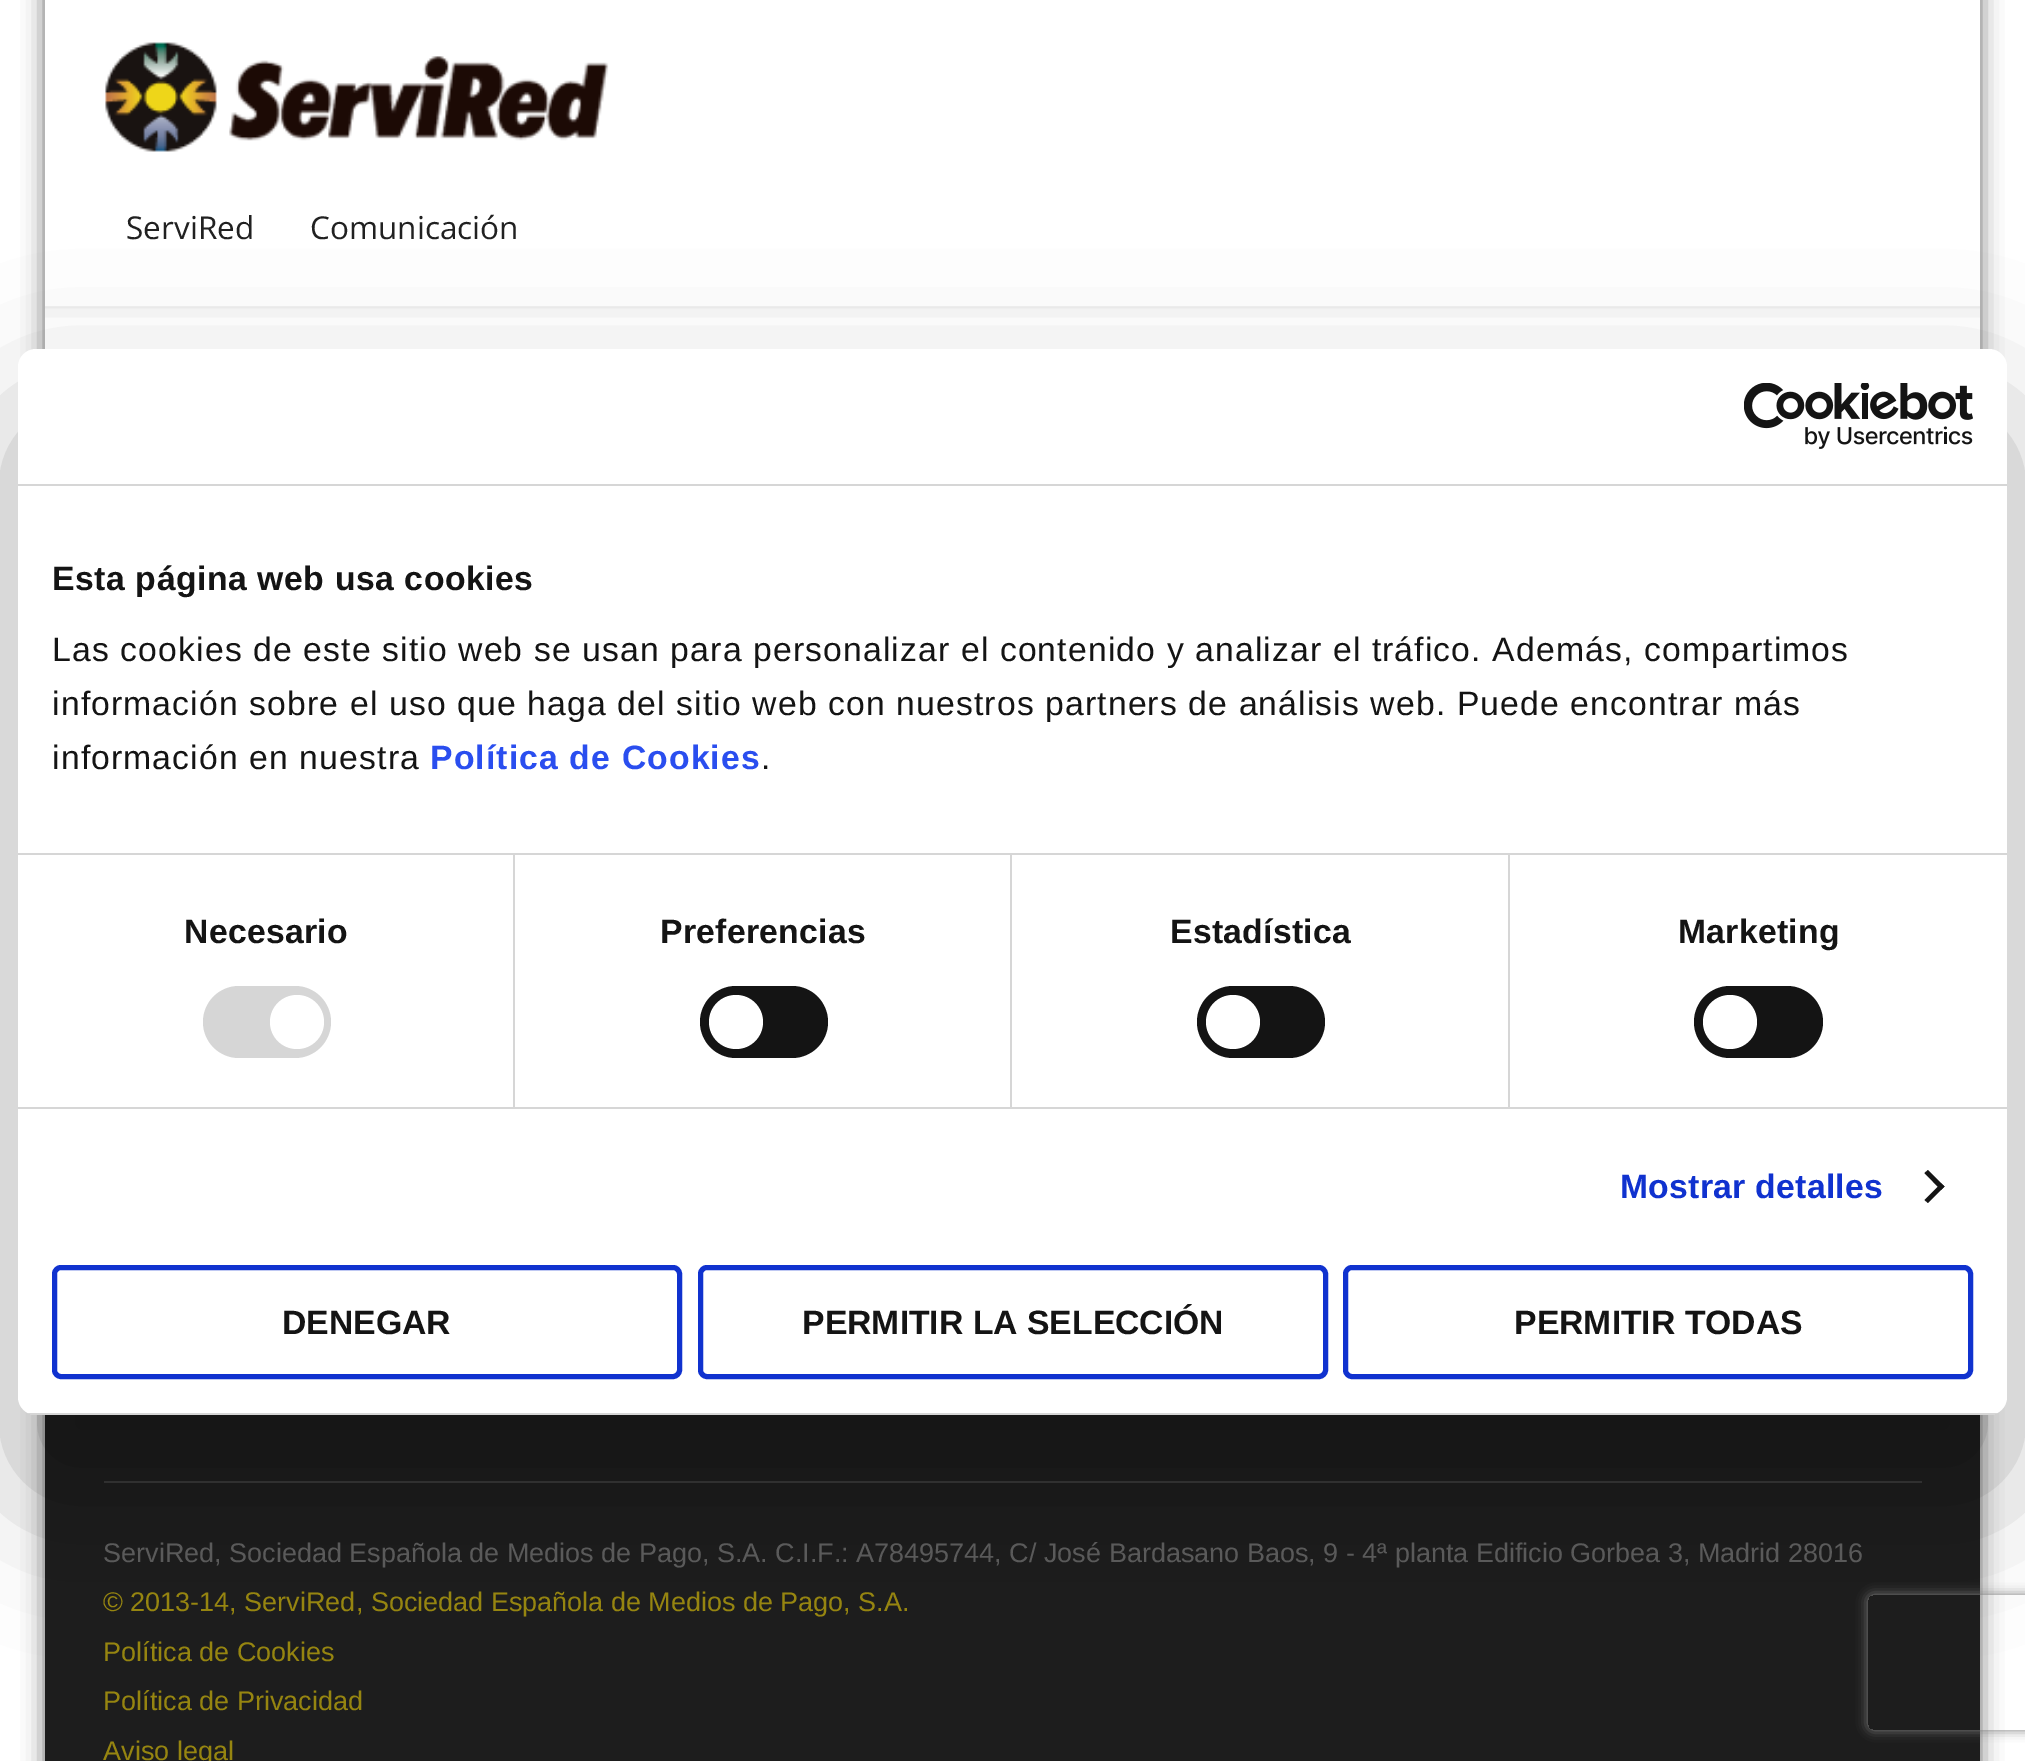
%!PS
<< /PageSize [2025 1761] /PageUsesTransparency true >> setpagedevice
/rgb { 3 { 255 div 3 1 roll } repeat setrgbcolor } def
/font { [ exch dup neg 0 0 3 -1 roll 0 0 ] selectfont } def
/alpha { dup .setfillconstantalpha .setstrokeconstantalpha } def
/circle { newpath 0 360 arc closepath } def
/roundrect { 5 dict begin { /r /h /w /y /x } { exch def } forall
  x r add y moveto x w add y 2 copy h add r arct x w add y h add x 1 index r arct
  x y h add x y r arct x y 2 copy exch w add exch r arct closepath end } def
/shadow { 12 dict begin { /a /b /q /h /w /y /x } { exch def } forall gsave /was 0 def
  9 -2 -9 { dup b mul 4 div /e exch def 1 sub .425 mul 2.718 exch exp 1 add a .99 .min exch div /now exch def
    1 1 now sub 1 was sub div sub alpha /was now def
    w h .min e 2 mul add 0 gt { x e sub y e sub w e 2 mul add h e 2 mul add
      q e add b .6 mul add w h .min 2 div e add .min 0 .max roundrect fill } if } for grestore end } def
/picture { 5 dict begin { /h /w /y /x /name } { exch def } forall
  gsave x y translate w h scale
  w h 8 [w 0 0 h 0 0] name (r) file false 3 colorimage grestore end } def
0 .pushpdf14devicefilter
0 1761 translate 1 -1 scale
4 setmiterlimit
255 255 255 rgb
0 0 2025 1761 rectfill
gsave
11 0 moveto 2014 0 lineto 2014 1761 lineto 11 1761 lineto closepath 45 -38 moveto 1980 -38 lineto 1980 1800 lineto 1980 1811 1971 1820 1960 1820 curveto 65 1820 lineto 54 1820 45 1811 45 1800 curveto closepath eoclip newpath
102 102 102 rgb
45 -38 1935 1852 20 11 1 shadow
grestore
(img/1.rgb) 105 42 504 110 picture
(img/2.rgb) 45 306 1935 12 picture
29 29 29 rgb
45 1415 1935 346 rectfill
55 55 55 rgb
104 1481 1818 2 rectfill
0 0 0 rgb
18 421 1989 1066 18 76.5 0.3 shadow
255 255 255 rgb
18 349 1989 1066 18 roundrect fill
214 214 214 rgb
18 484 1989 2 rectfill
(img/3.rgb) 1744 383 229 66 picture
[
  [18 853 1989 2 214 214 214]
  [18 1107 1989 2 214 214 214]
  [513 855 2 252 214 214 214]
] { aload pop rgb rectfill } forall
203 986 128 72 36 roundrect fill
255 255 255 rgb
297 1022 27 circle fill
214 214 214 rgb
1010 855 2 252 rectfill
20 20 20 rgb
700 986 128 72 36 roundrect fill
255 255 255 rgb
736 1022 27 circle fill
214 214 214 rgb
1508 855 2 252 rectfill
20 20 20 rgb
1197 986 128 72 36 roundrect fill
255 255 255 rgb
1233 1022 27 circle fill
20 20 20 rgb
1694 986 129 72 36 roundrect fill
255 255 255 rgb
1730 1022 27 circle fill
20 20 20 rgb
1928 1170 moveto 1944.5 1186.5 lineto 1941 1190 lineto 1924.5 1173 lineto closepath fill
1941 1183.5 moveto 1944.5 1186.5 lineto 1928 1203 lineto 1924.5 1200 lineto closepath fill
gsave
18 349 1989 1066 18 roundrect clip newpath
214 214 214 rgb
28 1413 1969 2 rectfill
grestore
16 50 207 rgb
5 setlinewidth
54.5 1267.5 625 109 6.5 roundrect stroke
700.5 1267.5 625 109 6.5 roundrect stroke
1345.5 1267.5 625 109 6.5 roundrect stroke
gsave
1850 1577 moveto 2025 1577 lineto 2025 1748 lineto 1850 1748 lineto closepath 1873 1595 moveto 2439 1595 lineto 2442 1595 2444 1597 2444 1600 curveto 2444 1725 lineto 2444 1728 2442 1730 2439 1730 curveto 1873 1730 lineto 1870 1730 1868 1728 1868 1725 curveto 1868 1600 lineto 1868 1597 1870 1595 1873 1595 curveto closepath eoclip newpath
128 128 128 rgb
1868 1595 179 135 5 5.5 1 shadow
grestore
/OpenSans-Regular 31.5 font
33 33 33 rgb
126 239 moveto (ServiRed) show
310 239 moveto (Comunicación) show
/LiberationSans-Regular 27 font
90 90 90 rgb
103 1562 moveto (ServiRed, Sociedad Española de Medios de Pago, S.A. C.I.F.: A78495744, C/ José Bardasano Baos, 9 - 4ª planta Edificio Gorbea 3, Madrid 28016) show
150 133 16 rgb
[
  [(© 2013-14, ServiRed, Sociedad Española de Medios de Pago, S.A.) 103 1611]
  [(Política de Cookies) 103 1661]
  [(Política de Privacidad) 103 1710]
  [(Aviso legal) 103 1760]
] { aload pop moveto show } forall
/LiberationSans-Bold 33.75 font
20 20 20 rgb
52 590 moveto 0.55 0 (Esta página web usa cookies) ashow
/LiberationSans-Regular 33.75 font
52 661 moveto 1.12 0 (Las cookies de este sitio web se usan para personalizar el contenido y analizar el tráfico. Además, compartimos) ashow
52 715 moveto 1.12 0 (información sobre el uso que haga del sitio web con nuestros partners de análisis web. Puede encontrar más) ashow
52 769 moveto 1.12 0 (información en nuestra) ashow
/LiberationSans-Bold 33.75 font
42 78 239 rgb
430 769 moveto 1.12 0 (Política de Cookies) ashow
/LiberationSans-Regular 33.75 font
20 20 20 rgb
761 769 moveto 1.12 0 (.) ashow
/LiberationSans-Bold 33.75 font
184 943 moveto 0.25 0 (Necesario) ashow
660 943 moveto 0.25 0 (Preferencias) ashow
1170 943 moveto 0.25 0 (Estadística) ashow
1678 943 moveto 0.25 0 (Marketing) ashow
16 50 207 rgb
1620 1198 moveto 0.25 0 (Mostrar detalles) ashow
20 20 20 rgb
[
  [(DENEGAR) 282 1334]
  [(PERMITIR LA SELECCIÓN) 802 1334]
  [(PERMITIR TODAS) 1514 1334]
] { aload pop moveto show } forall
.poppdf14devicefilter showpage
